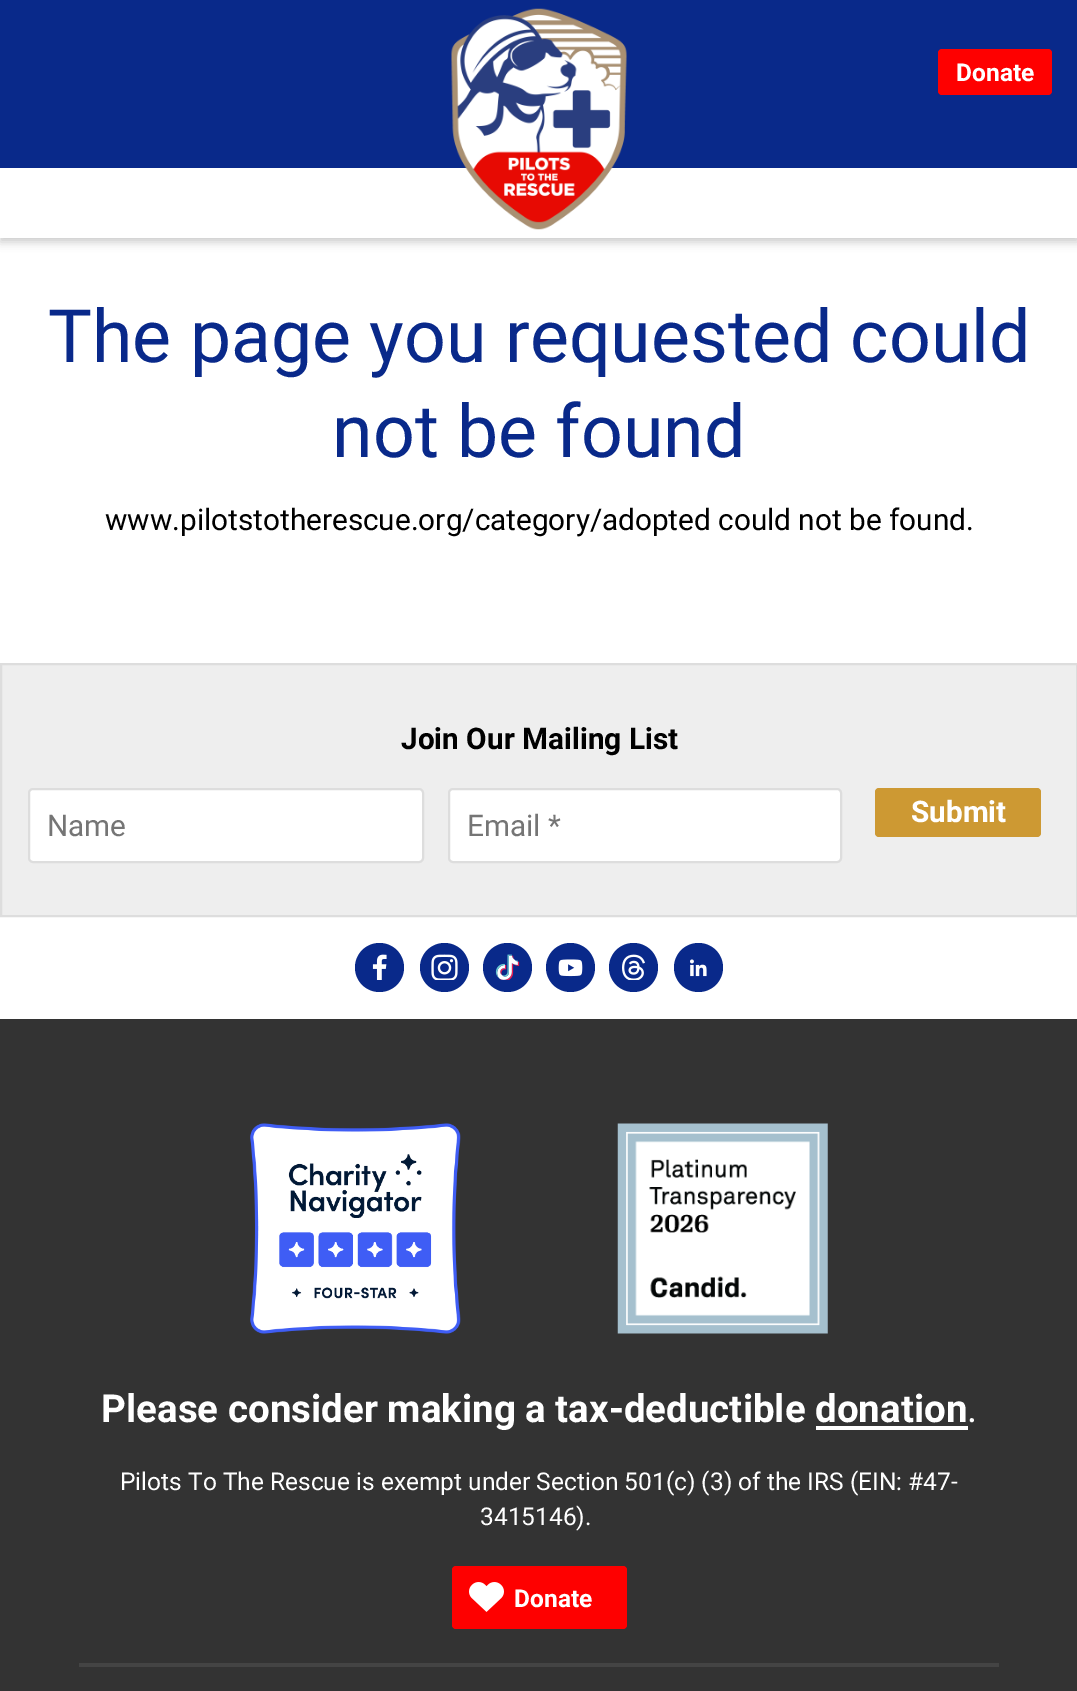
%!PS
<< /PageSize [1077 1691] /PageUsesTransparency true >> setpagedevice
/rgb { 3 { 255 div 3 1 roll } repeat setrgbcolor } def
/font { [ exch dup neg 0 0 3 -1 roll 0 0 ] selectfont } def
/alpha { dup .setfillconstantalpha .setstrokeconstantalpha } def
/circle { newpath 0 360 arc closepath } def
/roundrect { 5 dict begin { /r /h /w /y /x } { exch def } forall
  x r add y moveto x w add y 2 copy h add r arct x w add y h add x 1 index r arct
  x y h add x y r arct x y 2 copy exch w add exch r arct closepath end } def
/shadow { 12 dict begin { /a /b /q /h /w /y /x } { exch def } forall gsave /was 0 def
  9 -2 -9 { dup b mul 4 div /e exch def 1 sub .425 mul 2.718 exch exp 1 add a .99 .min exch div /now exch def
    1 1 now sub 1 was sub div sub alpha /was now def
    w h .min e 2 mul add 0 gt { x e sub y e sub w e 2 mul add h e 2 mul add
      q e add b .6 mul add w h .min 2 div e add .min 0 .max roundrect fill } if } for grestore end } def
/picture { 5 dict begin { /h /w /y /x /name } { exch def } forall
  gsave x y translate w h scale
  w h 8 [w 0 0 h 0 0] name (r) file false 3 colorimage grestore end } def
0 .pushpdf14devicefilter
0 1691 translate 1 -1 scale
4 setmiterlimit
255 255 255 rgb
0 0 1077 1691 rectfill
0 0 0 rgb
0 4 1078 238 0 4.5 0.2 shadow
9 41 138 rgb
0 0 1077 168 rectfill
255 255 255 rgb
0 168 1077 70 rectfill
(img/1.rgb) 451 8 176 222 picture
254 0 0 rgb
938 49 114 46 4 roundrect fill
238 238 238 rgb
1 664 moveto 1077 664 lineto 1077 916 lineto 1 916 lineto closepath gsave fill grestore
221 221 221 rgb
2 setlinewidth
stroke
255 255 255 rgb
29 789 394 73 4 roundrect gsave fill grestore
221 221 221 rgb
stroke
255 255 255 rgb
449 789 392 73 4 roundrect gsave fill grestore
221 221 221 rgb
stroke
205 153 51 rgb
875 788 166 49 4 roundrect fill
9 41 138 rgb
379.5 967.5 24.5 circle fill
(img/2.rgb) 372 954 15 26 picture
444.5 967.5 24.5 circle fill
(img/3.rgb) 431 954 27 26 picture
507.5 967.5 24.5 circle fill
(img/4.rgb) 495 954 25 26 picture
570.5 967.5 24.5 circle fill
(img/5.rgb) 558 959 25 18 picture
633.5 967.5 24.5 circle fill
(img/6.rgb) 622 954 23 26 picture
698.5 967.5 24.5 circle fill
(img/7.rgb) 690 959 17 18 picture
51 51 51 rgb
0 1019 1077 672 rectfill
(img/8.rgb) 250 1123 211 211 picture
(img/9.rgb) 617 1123 211 211 picture
255 255 255 rgb
816 1426 152 4 rectfill
254 0 0 rgb
452 1566 175 63 4 roundrect fill
(img/10.rgb) 469 1582 35 30 picture
68 68 68 rgb
79 1663 920 4 rectfill
/Roboto-Bold 24.5 font
255 255 255 rgb
956 81 moveto (Donate) show
/Roboto-Regular 73.5 font
9 41 138 rgb
48 362 moveto (The page you requested could) show
332 457 moveto (not be found) show
/Roboto-Regular 29.75 font
0 0 0 rgb
105 530 moveto (www.pilotstotherescue.org/category/adopted could not be found.) show
/Roboto-Bold 29.75 font
401 749 moveto (Join Our Mailing List) show
/Roboto-Regular 29.75 font
117 117 117 rgb
47 836 moveto (Name) show
467 836 moveto (Email *) show
/Roboto-Bold 29.75 font
255 255 255 rgb
911 822 moveto (Submit) show
/Roboto-Bold 38.5 font
101 1422 moveto (Please consider making a tax-deductible donation) show
/Roboto-Regular 38.5 font
967 1422 moveto (.) show
/Roboto-Regular 24.5 font
120 1490 moveto (Pilots To The Rescue is exempt under Section 501\(c\) \(3\) of the IRS \(EIN: #47-) show
480 1525 moveto (3415146\).) show
/Roboto-Bold 24.5 font
514 1607 moveto (Donate) show
.poppdf14devicefilter showpage
